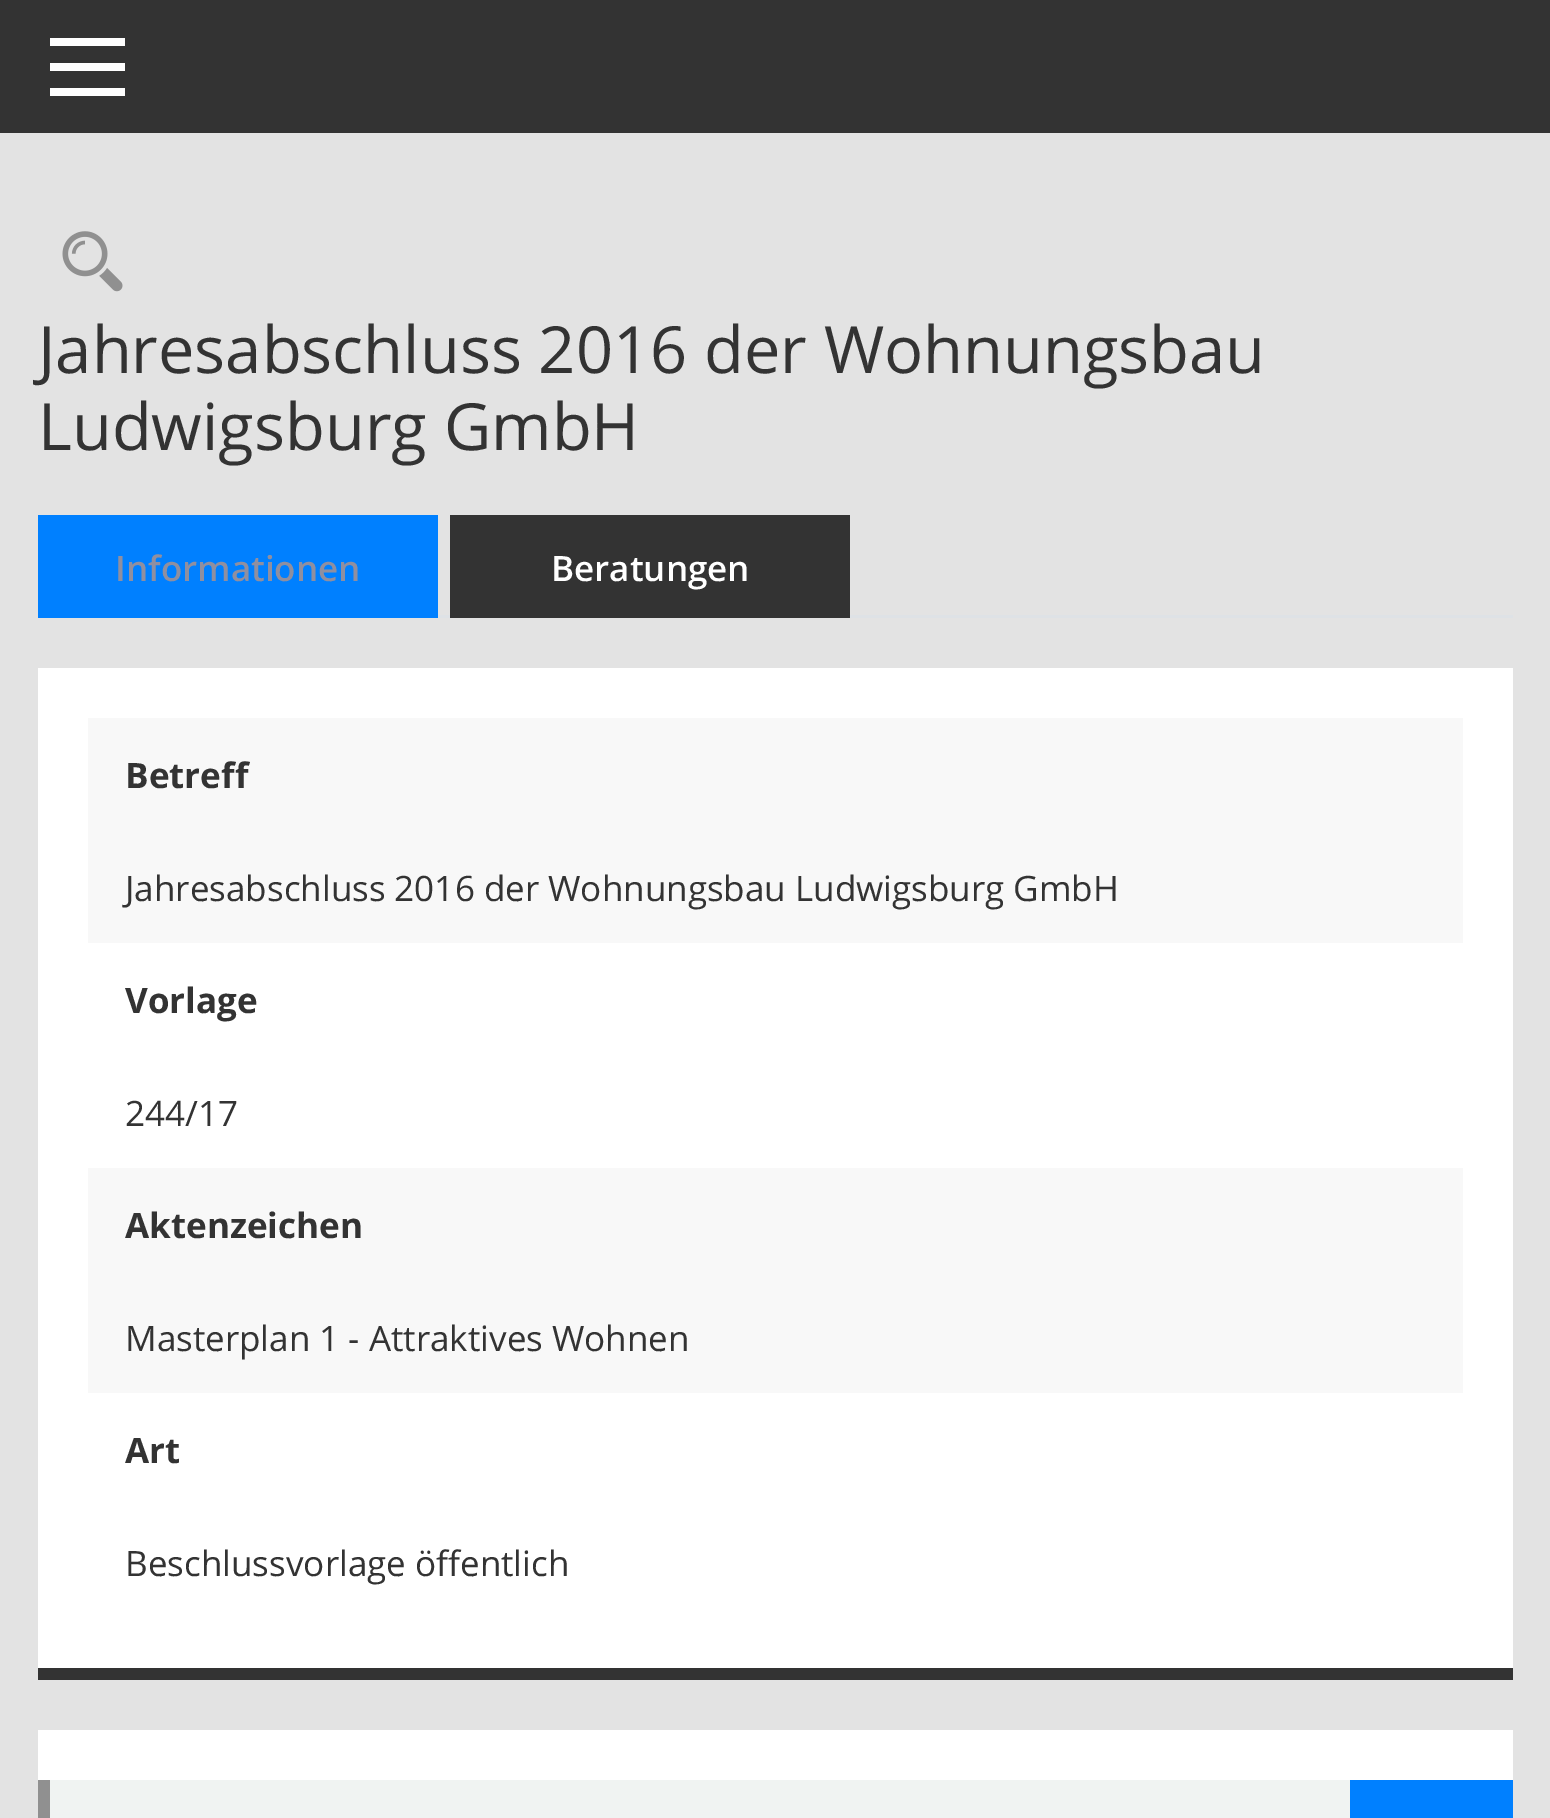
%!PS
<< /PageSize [1550 1818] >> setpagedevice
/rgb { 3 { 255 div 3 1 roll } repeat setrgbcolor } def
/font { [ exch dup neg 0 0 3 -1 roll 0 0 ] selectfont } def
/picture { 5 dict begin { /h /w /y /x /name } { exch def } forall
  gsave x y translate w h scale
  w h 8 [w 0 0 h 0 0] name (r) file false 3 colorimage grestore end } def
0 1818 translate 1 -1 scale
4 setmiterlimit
227 227 227 rgb
0 0 1550 1818 rectfill
[
  [0 0 1550 133 51 51 51]
  [50 38 75 8 255 255 255]
  [50 63 75 8 255 255 255]
  [50 88 75 8 255 255 255]
] { aload pop rgb rectfill } forall
(img/1.rgb) 62 231 61 61 picture
[
  [438 615 1075 3 222 226 230]
  [38 515 400 103 0 128 255]
  [450 515 400 103 51 51 51]
  [38 668 1475 1000 255 255 255]
  [38 1668 1475 12 51 51 51]
  [88 718 1375 225 248 248 248]
  [88 1168 1375 225 248 248 248]
  [38 1730 1475 50 255 255 255]
  [50 1780 1300 38 240 243 242]
  [38 1780 12 38 144 144 144]
  [1350 1780 163 38 0 128 255]
] { aload pop rgb rectfill } forall
/OpenSans-Regular 65 font
51 51 51 rgb
38 373 moveto (Jahresabschluss 2016 der Wohnungsbau) show
38 450 moveto (Ludwigsburg GmbH) show
/OpenSans-SemiBold 35 font
143 143 160 rgb
115 581 moveto (Informationen) show
255 255 255 rgb
551 581 moveto (Beratungen) show
/OpenSans-Bold 35 font
51 51 51 rgb
125 788 moveto (Betreff) show
/OpenSans-Regular 35 font
125 901 moveto (Jahresabschluss 2016 der Wohnungsbau Ludwigsburg GmbH) show
/OpenSans-Bold 35 font
125 1013 moveto (Vorlage) show
/OpenSans-Regular 35 font
125 1126 moveto (244/17) show
/OpenSans-Bold 35 font
125 1238 moveto (Aktenzeichen) show
/OpenSans-Regular 35 font
125 1351 moveto (Masterplan 1 - Attraktives Wohnen) show
/OpenSans-Bold 35 font
125 1463 moveto (Art) show
/OpenSans-Regular 35 font
125 1576 moveto (Beschlussvorlage öffentlich) show
showpage
